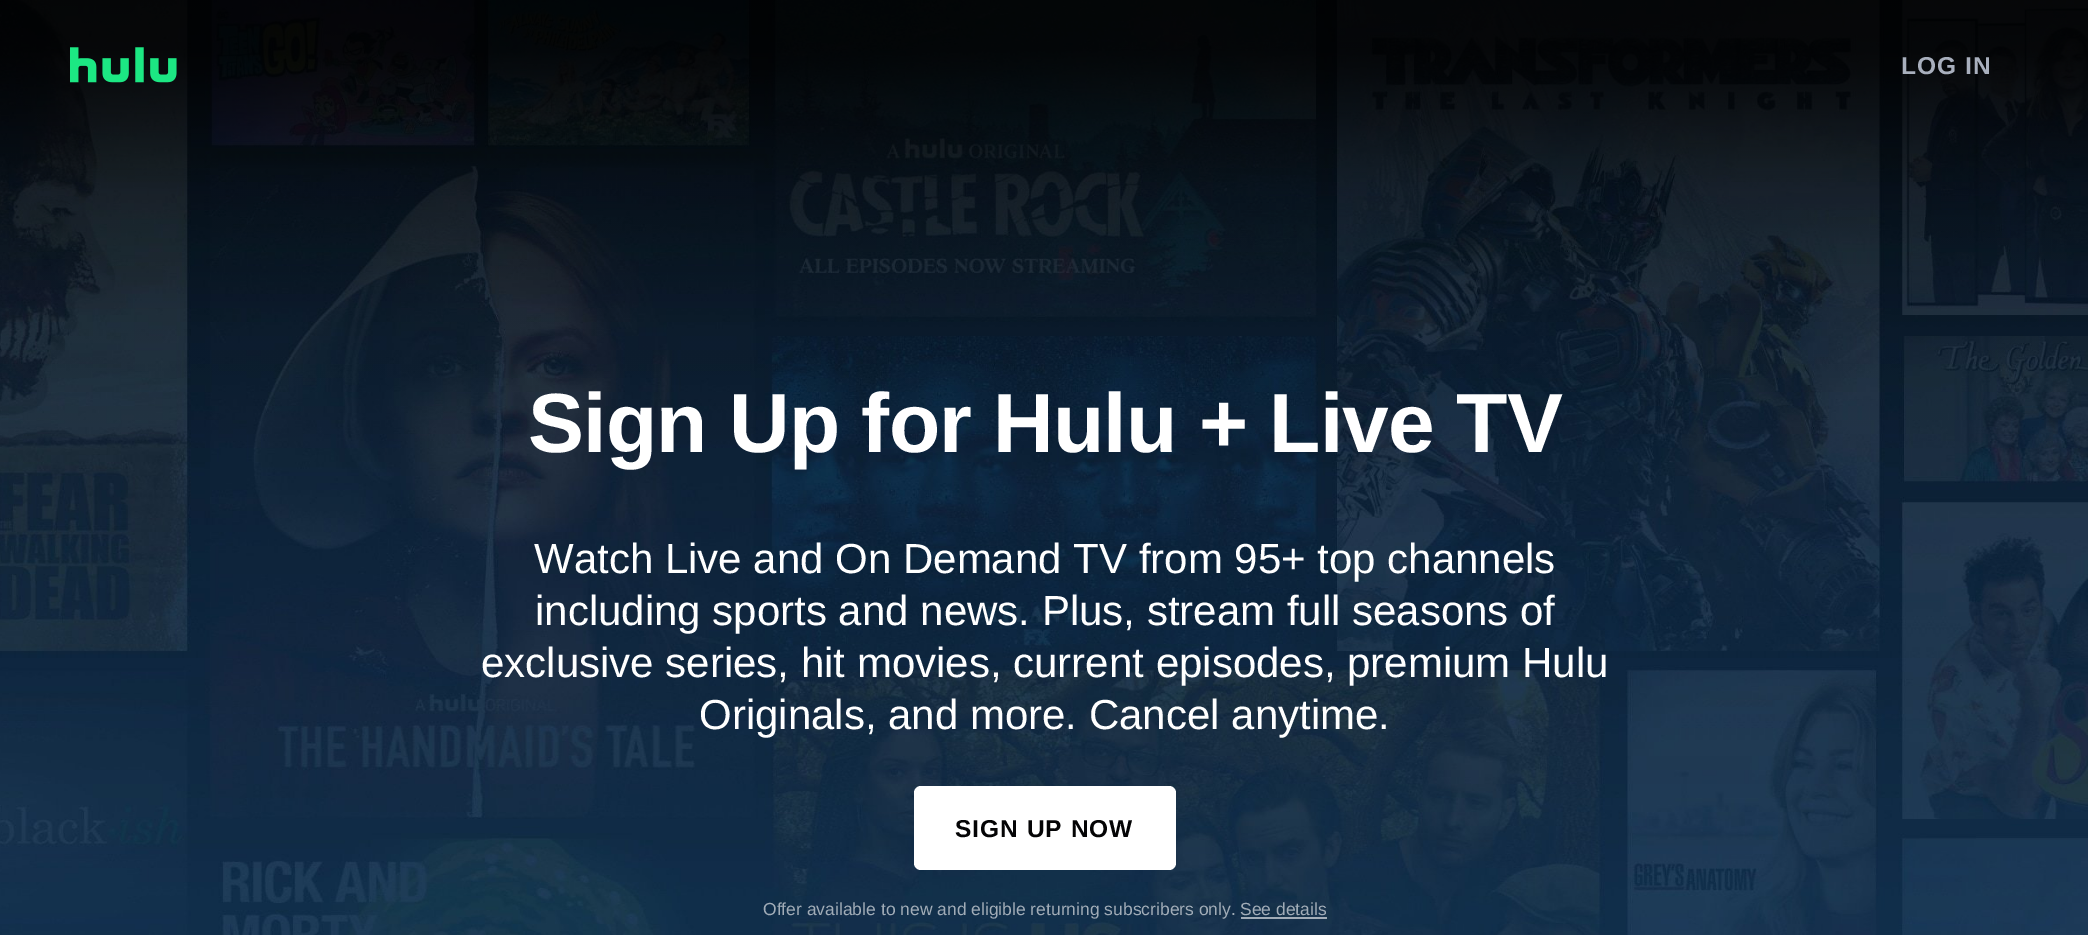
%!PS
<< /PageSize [2088 935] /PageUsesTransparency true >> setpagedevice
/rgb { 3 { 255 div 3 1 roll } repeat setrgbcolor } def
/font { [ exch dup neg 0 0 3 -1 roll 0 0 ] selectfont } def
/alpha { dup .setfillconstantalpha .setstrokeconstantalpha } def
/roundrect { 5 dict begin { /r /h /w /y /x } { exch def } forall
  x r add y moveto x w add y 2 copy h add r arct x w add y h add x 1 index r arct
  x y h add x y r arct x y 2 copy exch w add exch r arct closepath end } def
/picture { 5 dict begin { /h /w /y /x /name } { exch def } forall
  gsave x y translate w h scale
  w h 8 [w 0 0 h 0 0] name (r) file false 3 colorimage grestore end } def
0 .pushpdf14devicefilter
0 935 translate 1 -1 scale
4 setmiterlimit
255 255 255 rgb
0 0 2088 935 rectfill
(img/2.rgb) 0 0 2088 935 picture
(img/1.rgb) 70 47 107 36 picture
914 786 262 84 7 roundrect fill
0.6 alpha
1241 917 86 2 rectfill
/LiberationSans-Bold 24.5 font
1 alpha
168 175 189 rgb
1901 74 moveto 1 0 (LOG IN) ashow
/LiberationSans-Bold 84 font
255 255 255 rgb
528 452 moveto -0.9 0 (Sign Up for Hulu + Live TV) ashow
/LiberationSans-Regular 42 font
[
  [(Watch Live and On Demand TV from 95+ top channels) 534 573]
  [(including sports and news. Plus, stream full seasons of) 535 625]
  [(exclusive series, hit movies, current episodes, premium Hulu) 481 677]
  [(Originals, and more. Cancel anytime.) 699 729]
] { aload pop moveto show } forall
/LiberationSans-Bold 24.5 font
4 4 5 rgb
955 837 moveto 1 0 (SIGN UP NOW) ashow
/LiberationSans-Regular 17.5 font
161 172 183 rgb
763 915 moveto (Offer available to new and eligible returning subscribers only.) show
1240 915 moveto (See details) show
.poppdf14devicefilter showpage
